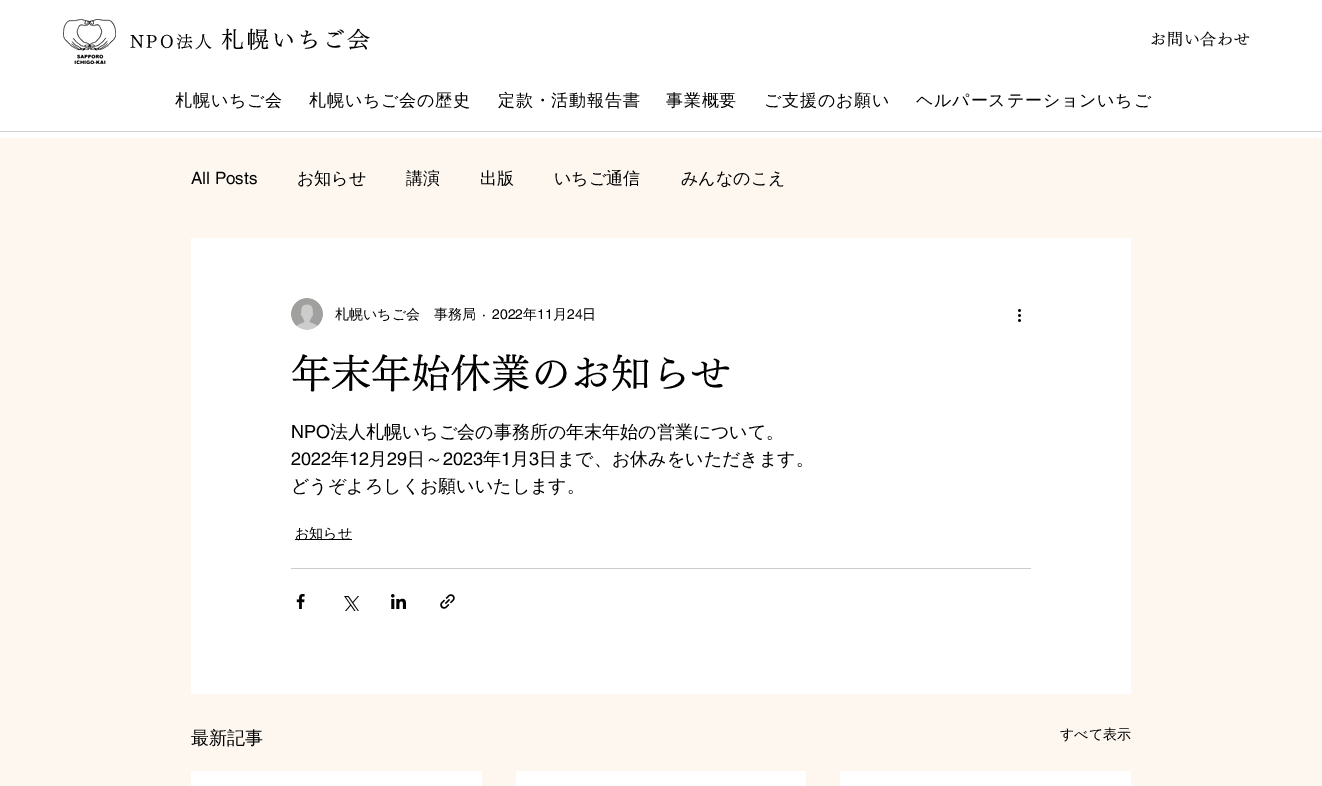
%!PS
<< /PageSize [1322 786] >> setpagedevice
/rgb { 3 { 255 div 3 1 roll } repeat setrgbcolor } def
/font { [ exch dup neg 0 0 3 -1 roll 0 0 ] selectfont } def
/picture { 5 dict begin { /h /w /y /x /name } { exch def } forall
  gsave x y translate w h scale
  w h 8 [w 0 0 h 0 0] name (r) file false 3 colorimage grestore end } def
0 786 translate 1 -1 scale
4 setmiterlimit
255 255 255 rgb
0 0 1322 786 rectfill
(img/1.rgb) 63 19 53 45 picture
[
  [0 131 1322 1 209 209 209]
  [0 138 1322 648 253 247 239]
  [191 238 940 456 255 255 255]
] { aload pop rgb rectfill } forall
(img/2.rgb) 291 298 32 32 picture
(img/3.rgb) 1018 309 3 13 picture
0 0 0 rgb
295 539 57 1 rectfill
204 204 204 rgb
291 568 740 1 rectfill
(img/4.rgb) 296 594 9 15 picture
(img/5.rgb) 344 596 15 15 picture
(img/6.rgb) 391 594 15 15 picture
(img/7.rgb) 440 594 15 15 picture
[
  [191 771 291 15 255 255 255]
  [516 771 290 15 255 255 255]
  [840 771 291 15 255 255 255]
] { aload pop rgb rectfill } forall
/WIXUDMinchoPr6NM-Medium 17 font
0 0 0 rgb
130 48 moveto 2.25 0 (NPO法人) ashow
/WIXUDMinchoPr6NM-Medium 23 font
221 48 moveto 2.25 0 (札幌いちご会) ashow
/WIXUDMinchoPr6NM-Medium 16 font
1150 45 moveto 0.75 0 (お問い合わせ) ashow
/WenQuanYiZenHei-Medium 17 font
175 106 moveto 0.8 0 (札幌いちご会) ashow
309 106 moveto 0.8 0 (札幌いちご会の歴史) ashow
498 106 moveto 0.8 0 (定款・活動報告書) ashow
666 106 moveto 0.8 0 (事業概要) ashow
764 106 moveto 0.8 0 (ご支援のお願い) ashow
916 106 moveto 0.8 0 (ヘルパーステーションいちご) ashow
/helvetica-Regular 17 font
191 184 moveto (All Posts) show
/WenQuanYiZenHei-Medium 17 font
[
  [(お知らせ) 297 184]
  [(講演) 406 184]
  [(出版) 480 184]
  [(いちご通信) 554 184]
  [(みんなのこえ) 681 184]
] { aload pop moveto show } forall
/WenQuanYiZenHei-Medium 14 font
335 319 moveto (札幌いちご会　事務局) show
/helvetica-Regular 14 font
482 319 moveto (·) show
492 319 moveto (2022) show
/WenQuanYiZenHei-Medium 14 font
523 319 moveto (年) show
/helvetica-Regular 14 font
537 319 moveto (11) show
/WenQuanYiZenHei-Medium 14 font
553 319 moveto (月) show
/helvetica-Regular 14 font
567 319 moveto (24) show
/WenQuanYiZenHei-Medium 14 font
582 319 moveto (日) show
/WIXUDMinchoPr6NM-Medium 40 font
291 388 moveto (年末年始休業のお知らせ) show
/helvetica-Regular 18 font
291 438 moveto (NPO) show
/WenQuanYiZenHei-Medium 18 font
330 438 moveto (法人札幌いちご会の事務所の年末年始の営業について。) show
/helvetica-Regular 18 font
291 465 moveto (2022) show
/WenQuanYiZenHei-Medium 18 font
331 465 moveto (年) show
/helvetica-Regular 18 font
349 465 moveto (12) show
/WenQuanYiZenHei-Medium 18 font
369 465 moveto (月) show
/helvetica-Regular 18 font
387 465 moveto (29) show
/WenQuanYiZenHei-Medium 18 font
407 465 moveto (日～) show
/helvetica-Regular 18 font
443 465 moveto (2023) show
/WenQuanYiZenHei-Medium 18 font
483 465 moveto (年) show
/helvetica-Regular 18 font
501 465 moveto (1) show
/WenQuanYiZenHei-Medium 18 font
511 465 moveto (月) show
/helvetica-Regular 18 font
529 465 moveto (3) show
/WenQuanYiZenHei-Medium 18 font
539 465 moveto (日まで、お休みをいただきます。) show
291 492 moveto (どうぞよろしくお願いいたします。) show
/WenQuanYiZenHei-Medium 14 font
295 538 moveto (お知らせ) show
/WenQuanYiZenHei-Medium 18 font
191 744 moveto (最新記事) show
/WenQuanYiZenHei-Medium 14 font
1060 739 moveto (すべて表示) show
showpage
